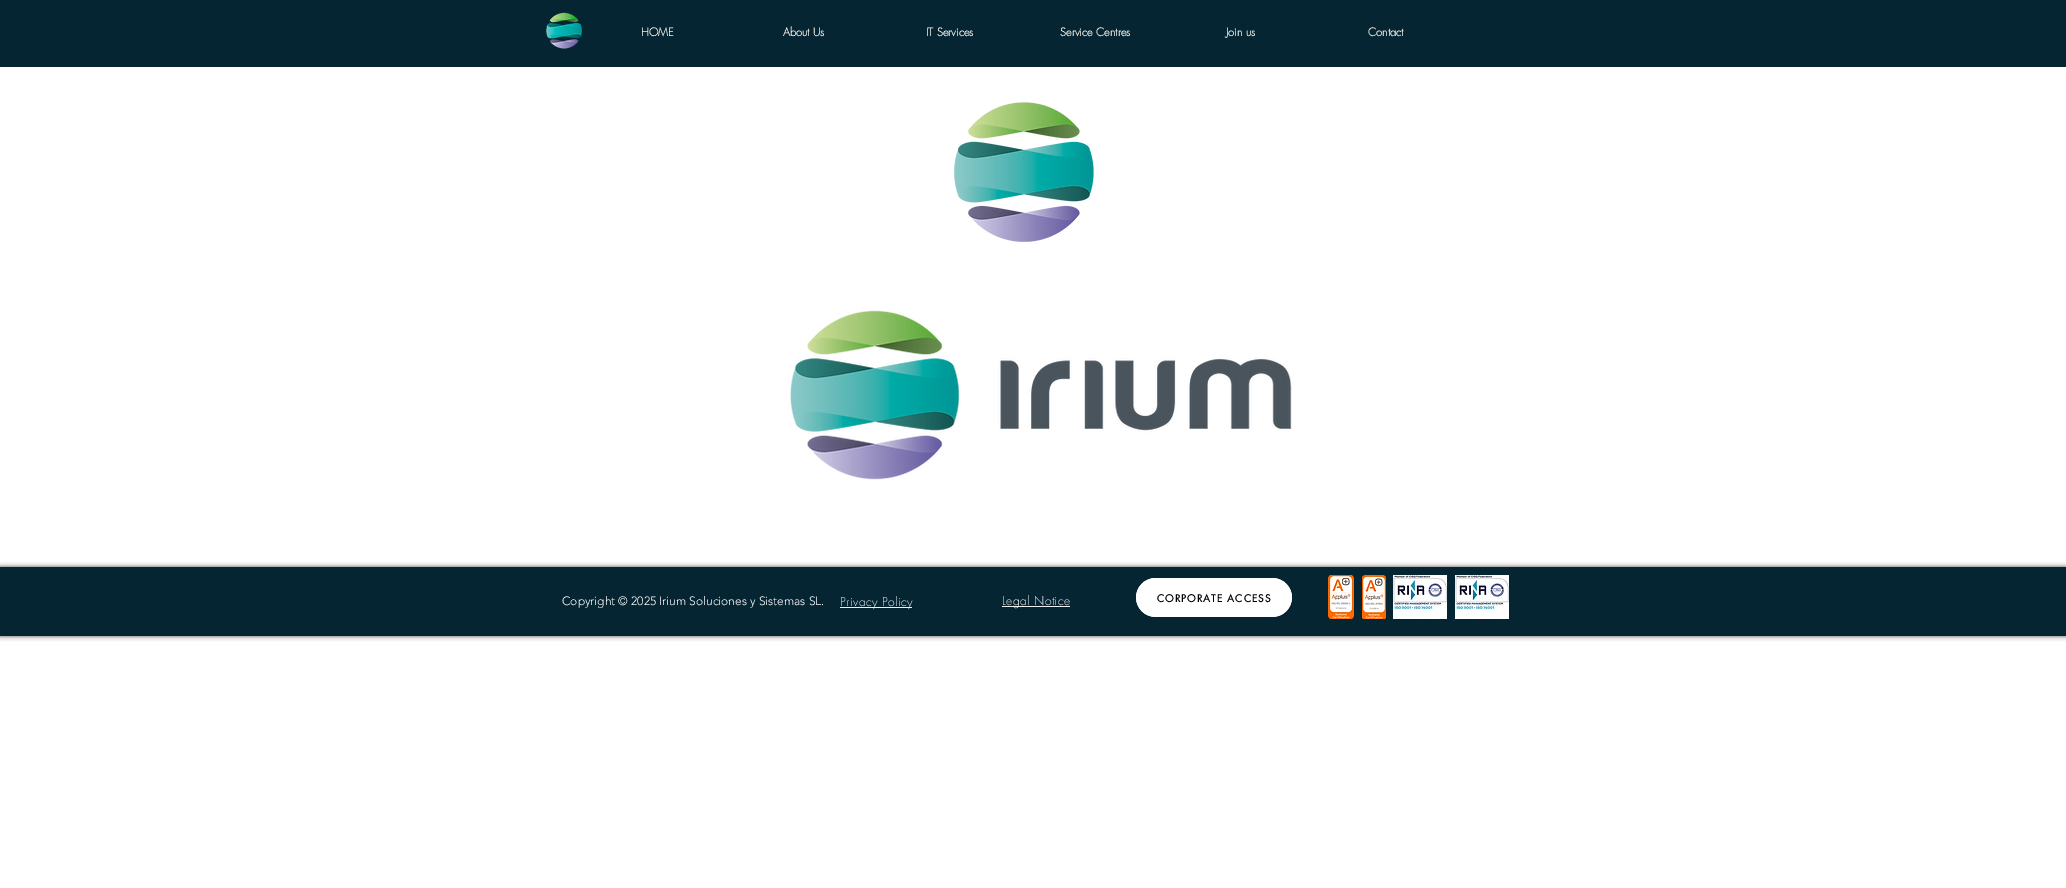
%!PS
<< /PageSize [2066 888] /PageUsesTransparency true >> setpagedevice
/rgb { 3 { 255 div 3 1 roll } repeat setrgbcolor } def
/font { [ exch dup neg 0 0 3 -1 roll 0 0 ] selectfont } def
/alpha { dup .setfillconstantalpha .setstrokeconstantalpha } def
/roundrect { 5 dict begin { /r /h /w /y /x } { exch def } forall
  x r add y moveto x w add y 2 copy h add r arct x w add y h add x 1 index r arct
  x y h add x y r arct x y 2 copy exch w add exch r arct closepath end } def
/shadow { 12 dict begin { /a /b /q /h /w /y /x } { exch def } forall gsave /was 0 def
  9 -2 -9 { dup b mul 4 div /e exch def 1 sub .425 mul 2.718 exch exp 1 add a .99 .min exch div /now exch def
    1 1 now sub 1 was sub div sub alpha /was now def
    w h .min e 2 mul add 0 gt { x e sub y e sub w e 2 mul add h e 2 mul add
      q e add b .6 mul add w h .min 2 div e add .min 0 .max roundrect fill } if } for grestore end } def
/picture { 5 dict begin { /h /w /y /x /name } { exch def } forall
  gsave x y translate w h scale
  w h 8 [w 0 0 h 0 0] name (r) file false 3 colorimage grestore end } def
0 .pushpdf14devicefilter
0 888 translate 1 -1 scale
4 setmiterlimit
255 255 255 rgb
0 0 2066 888 rectfill
5 37 51 rgb
0 0 2066 67 rectfill
(img/1.rgb) 546 12 36 37 picture
(img/2.rgb) 954 102 140 140 picture
(img/3.rgb) 790 310 502 170 picture
0 0 0 rgb
0 567 2066 69 0 2.5 0.7 shadow
[
  [0 567 2066 69 5 37 51]
  [840 607 72 1 240 240 240]
  [1002 606 68 1 240 240 240]
] { aload pop rgb rectfill } forall
255 255 255 rgb
1136 578 156 39 19.5 roundrect fill
(img/4.rgb) 1136 578 156 39 picture
(img/5.rgb) 1328 575 26 44 picture
(img/6.rgb) 1362 575 24 44 picture
(img/7.rgb) 1393 575 54 44 picture
(img/7.rgb) 1455 575 54 44 picture
/futura-Bold 11 font
252 248 237 rgb
[
  [(HOME) 641 36]
  [(About Us) 783 36]
  [(IT Services) 926 36]
  [(Service Centres) 1060 36]
  [(Join us) 1226 36]
  [(Contact) 1368 36]
] { aload pop moveto show } forall
/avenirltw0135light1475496-Light 12 font
255 255 255 rgb
562 605 moveto (Copyright © 2025 Irium Soluciones y Sistemas SL.) show
/futura-Light 12 font
240 240 240 rgb
840 606 moveto 0.4 0 (Privacy Policy) ashow
1002 605 moveto 0.4 0 (Legal Notice) ashow
/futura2-Bold 10 font
0 0 0 rgb
1157 602 moveto 1 0 (CORPORATE ACCESS) ashow
.poppdf14devicefilter showpage
